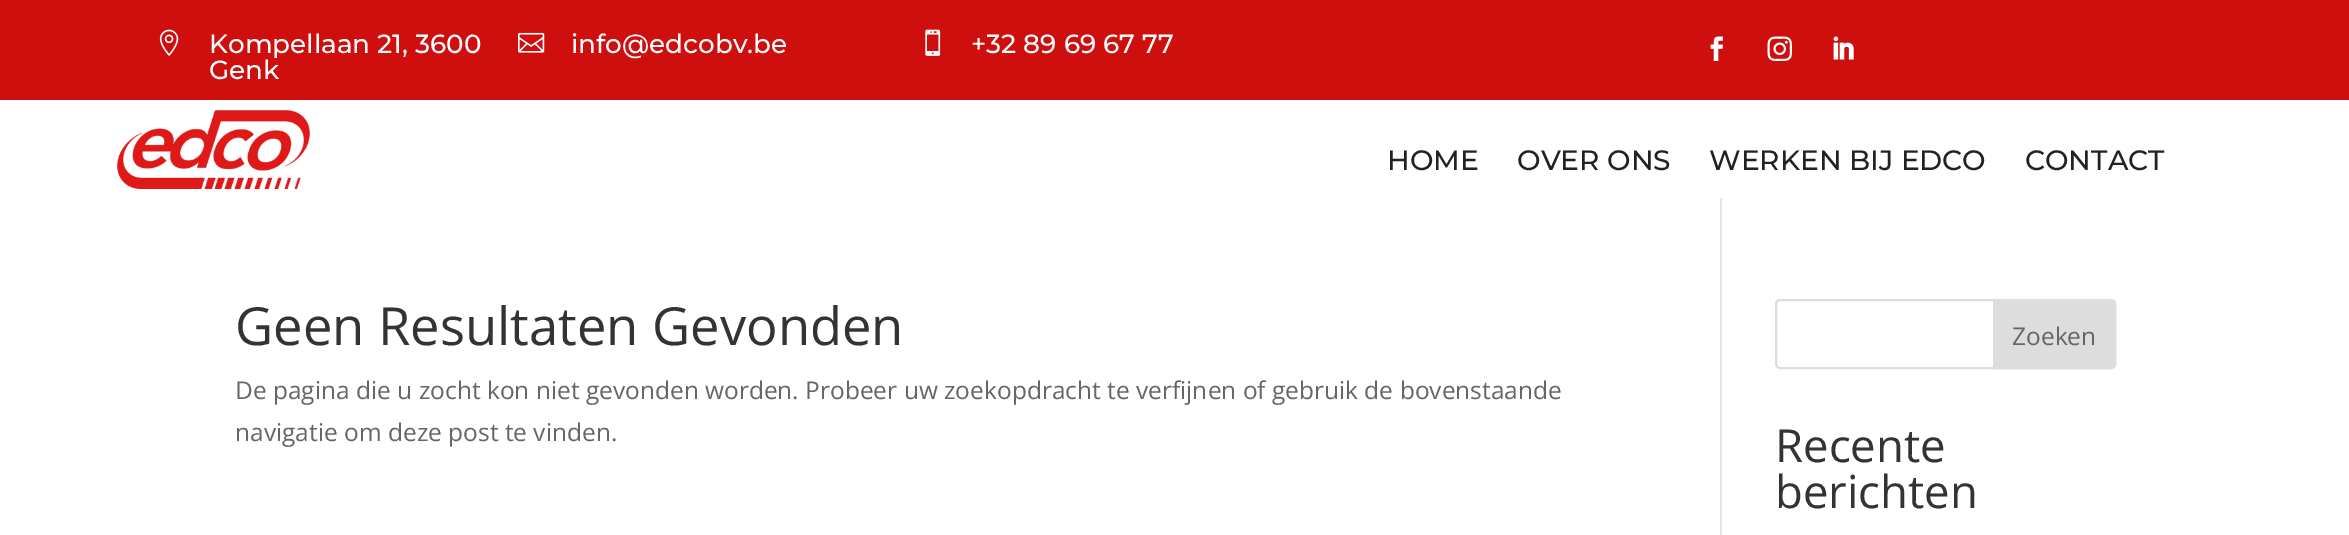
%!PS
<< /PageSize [2349 535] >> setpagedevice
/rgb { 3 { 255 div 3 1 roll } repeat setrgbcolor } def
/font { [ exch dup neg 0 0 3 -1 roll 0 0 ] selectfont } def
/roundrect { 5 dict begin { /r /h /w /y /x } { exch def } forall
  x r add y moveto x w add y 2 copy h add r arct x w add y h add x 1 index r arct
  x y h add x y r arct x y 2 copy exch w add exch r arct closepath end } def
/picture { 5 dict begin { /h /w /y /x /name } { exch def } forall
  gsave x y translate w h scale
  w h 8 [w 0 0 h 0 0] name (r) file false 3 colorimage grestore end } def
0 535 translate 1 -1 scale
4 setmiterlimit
255 255 255 rgb
0 0 2349 535 rectfill
207 14 14 rgb
0 0 2349 100 rectfill
(img/1.rgb) 159 29 20 27 picture
(img/2.rgb) 518 32 27 21 picture
(img/3.rgb) 925 29 16 27 picture
(img/4.rgb) 1710 36 13 25 picture
(img/5.rgb) 1767 36 25 25 picture
(img/6.rgb) 1833 36 21 24 picture
(img/7.rgb) 117 110 193 79 picture
226 226 226 rgb
1720 198 2 337 rectfill
221 221 221 rgb
2 setlinewidth
1776 300 339 68 4 roundrect stroke
1994 300 moveto 2111 300 lineto 2113 300 2115 302 2115 304 curveto 2115 364 lineto 2115 366 2113 368 2111 368 curveto 1994 368 lineto closepath gsave fill grestore
stroke
/Montserrat-Medium 26.25 font
255 255 255 rgb
[
  [(Kompellaan 21, 3600) 209 53]
  [(Genk) 209 79]
  [(info@edcobv.be) 571 53]
  [(+32 89 69 67 77) 971 53]
] { aload pop moveto show } forall
/Montserrat-Medium 28 font
34 34 34 rgb
[
  [(HOME) 1387 170]
  [(OVER ONS) 1517 170]
  [(WERKEN BIJ EDCO) 1709 170]
  [(CONTACT) 2025 170]
] { aload pop moveto show } forall
/OpenSans-Regular 52.5 font
51 51 51 rgb
235 345 moveto (Geen Resultaten Gevonden) show
/OpenSans-Regular 24.5 font
102 102 102 rgb
[
  [(De pagina die u zocht kon niet gevonden worden. Probeer uw zoekopdracht te verfijnen of gebruik de bovenstaande) 235 399]
  [(navigatie om deze post te vinden.) 235 441]
  [(Zoeken) 2012 345]
] { aload pop moveto show } forall
/OpenSans-Regular 45.5 font
51 51 51 rgb
1775 462 moveto (Recente) show
1775 508 moveto (berichten) show
showpage
